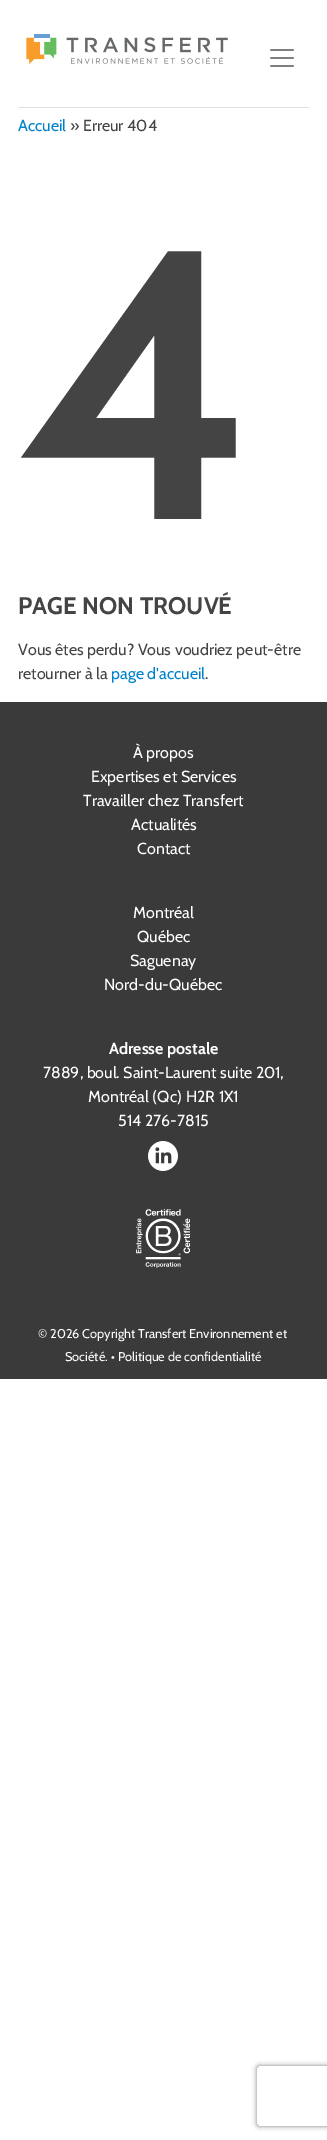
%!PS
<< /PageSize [327 2140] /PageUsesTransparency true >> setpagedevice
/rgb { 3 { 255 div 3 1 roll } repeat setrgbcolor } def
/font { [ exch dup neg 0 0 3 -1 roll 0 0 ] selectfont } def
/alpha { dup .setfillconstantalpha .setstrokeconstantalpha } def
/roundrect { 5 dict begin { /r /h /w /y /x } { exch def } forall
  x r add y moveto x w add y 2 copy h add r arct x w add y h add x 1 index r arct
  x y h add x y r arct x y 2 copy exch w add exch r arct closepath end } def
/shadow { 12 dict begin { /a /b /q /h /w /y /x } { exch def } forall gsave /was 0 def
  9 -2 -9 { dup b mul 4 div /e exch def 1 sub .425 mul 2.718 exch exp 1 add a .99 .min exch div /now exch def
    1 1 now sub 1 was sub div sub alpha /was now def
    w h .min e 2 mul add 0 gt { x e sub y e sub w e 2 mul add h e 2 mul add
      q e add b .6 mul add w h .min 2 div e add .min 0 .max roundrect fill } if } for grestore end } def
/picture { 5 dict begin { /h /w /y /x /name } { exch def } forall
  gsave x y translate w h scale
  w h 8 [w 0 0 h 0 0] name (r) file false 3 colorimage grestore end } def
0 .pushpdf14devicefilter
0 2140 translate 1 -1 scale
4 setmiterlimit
255 255 255 rgb
0 0 327 2140 rectfill
(img/1.rgb) 26 34 202 30 picture
(img/2.rgb) 270 49 24 18 picture
222 226 230 rgb
18 107 291 1 rectfill
58 58 58 rgb
0 702 327 677 rectfill
(img/3.rgb) 148 1141 30 30 picture
(img/4.rgb) 136 1209 55 59 picture
gsave
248 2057 moveto 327 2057 lineto 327 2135 lineto 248 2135 lineto closepath 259 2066 moveto 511 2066 lineto 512 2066 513 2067 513 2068 curveto 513 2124 lineto 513 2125 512 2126 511 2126 curveto 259 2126 lineto 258 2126 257 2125 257 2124 curveto 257 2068 lineto 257 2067 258 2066 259 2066 curveto closepath eoclip newpath
128 128 128 rgb
257 2066 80 60 2 2.5 1 shadow
grestore
/Cabin-Regular 16 font
0 130 202 rgb
18 131 moveto (Accueil) show
68 68 68 rgb
70 131 moveto (» Erreur 404) show
/Cabin-Bold 384 font
18 519 moveto (4) show
/Cabin-Bold 24 font
18 614 moveto (PAGE NON TROUVÉ) show
/Cabin-Regular 16 font
18 655 moveto (Vous êtes perdu? Vous voudriez peut-être) show
18 679 moveto (retourner à la) show
0 130 202 rgb
111 679 moveto (page d'accueil) show
68 68 68 rgb
205 679 moveto (.) show
255 255 255 rgb
[
  [(À propos) 133 758]
  [(Expertises et Services) 91 782]
  [(Travailler chez Transfert) 83 806]
  [(Actualités) 131 830]
  [(Contact) 137 854]
  [(Montréal) 133 918]
  [(Québec) 137 942]
  [(Saguenay) 130 966]
  [(Nord-du-Québec) 104 990]
] { aload pop moveto show } forall
/Cabin-Bold 16 font
109 1054 moveto (Adresse postale) show
/Cabin-Regular 16 font
[
  [(7889, boul. Saint-Laurent suite 201,) 43 1078]
  [(Montréal \(Qc\) H2R 1X1) 88 1102]
  [(514 276-7815) 118 1126]
] { aload pop moveto show } forall
/Cabin-Regular 12.75 font
38 1338 moveto (© 2026 Copyright Transfert Environnement et) show
65 1361 moveto (Société. • Politique de confidentialité) show
.poppdf14devicefilter showpage
